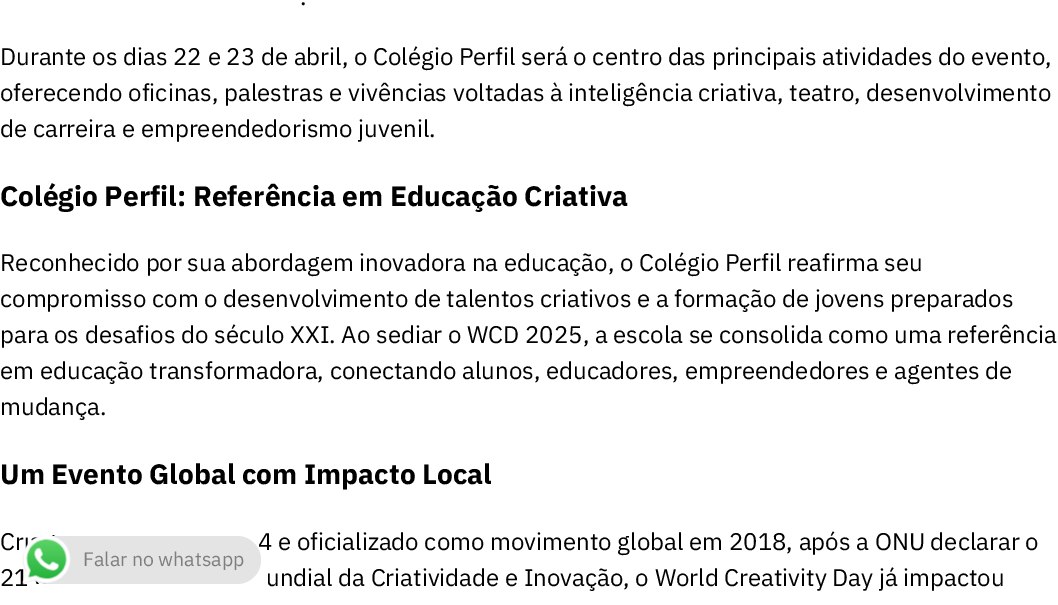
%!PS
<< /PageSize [1058 605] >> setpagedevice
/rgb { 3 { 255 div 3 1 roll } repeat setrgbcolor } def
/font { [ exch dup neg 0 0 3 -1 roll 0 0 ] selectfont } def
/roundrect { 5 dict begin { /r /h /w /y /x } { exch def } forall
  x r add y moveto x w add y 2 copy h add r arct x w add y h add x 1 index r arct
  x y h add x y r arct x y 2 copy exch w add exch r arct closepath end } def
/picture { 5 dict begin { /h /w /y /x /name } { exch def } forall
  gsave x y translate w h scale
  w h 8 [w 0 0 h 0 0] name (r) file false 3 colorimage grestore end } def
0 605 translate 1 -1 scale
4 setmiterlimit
255 255 255 rgb
0 0 1058 605 rectfill
/IBMPlexSans-Regular 24 font
0 0 0 rgb
[
  [(.) 300 5]
  [(Durante os dias 22 e 23 de abril, o Colégio Perfil será o centro das principais atividades do evento,) 0 65]
  [(oferecendo oficinas, palestras e vivências voltadas à inteligência criativa, teatro, desenvolvimento) 0 101]
  [(de carreira e empreendedorismo juvenil.) 0 137]
] { aload pop moveto show } forall
/IBMPlexSans-Bold 28.1 font
0 206 moveto (Colégio Perfil: Referência em Educação Criativa) show
/IBMPlexSans-Regular 24 font
[
  [(Reconhecido por sua abordagem inovadora na educação, o Colégio Perfil reafirma seu) 0 271]
  [(compromisso com o desenvolvimento de talentos criativos e a formação de jovens preparados) 0 307]
  [(para os desafios do século XXI. Ao sediar o WCD 2025, a escola se consolida como uma referência) 0 343]
  [(em educação transformadora, conectando alunos, educadores, empreendedores e agentes de) 0 379]
  [(mudança.) 0 415]
] { aload pop moveto show } forall
/IBMPlexSans-Bold 28.1 font
0 484 moveto (Um Evento Global com Impacto Local) show
/IBMPlexSans-Regular 24 font
[
  [(Cr) 0 550]
  [(4 e oficializado como movimento global em 2018, após a ONU declarar o) 258 550]
  [(21) 0 586]
  [(undial da Criatividade e Inovação, o World Creativity Day já impactou) 266 586]
] { aload pop moveto show } forall
228 228 228 rgb
23 536 238 48 24 roundrect fill
(img/1.rgb) 22 535 49 49 picture
/IBMPlexSans-Regular 19.5 font
127 125 125 rgb
83 566 moveto (Falar no whatsapp) show
showpage
